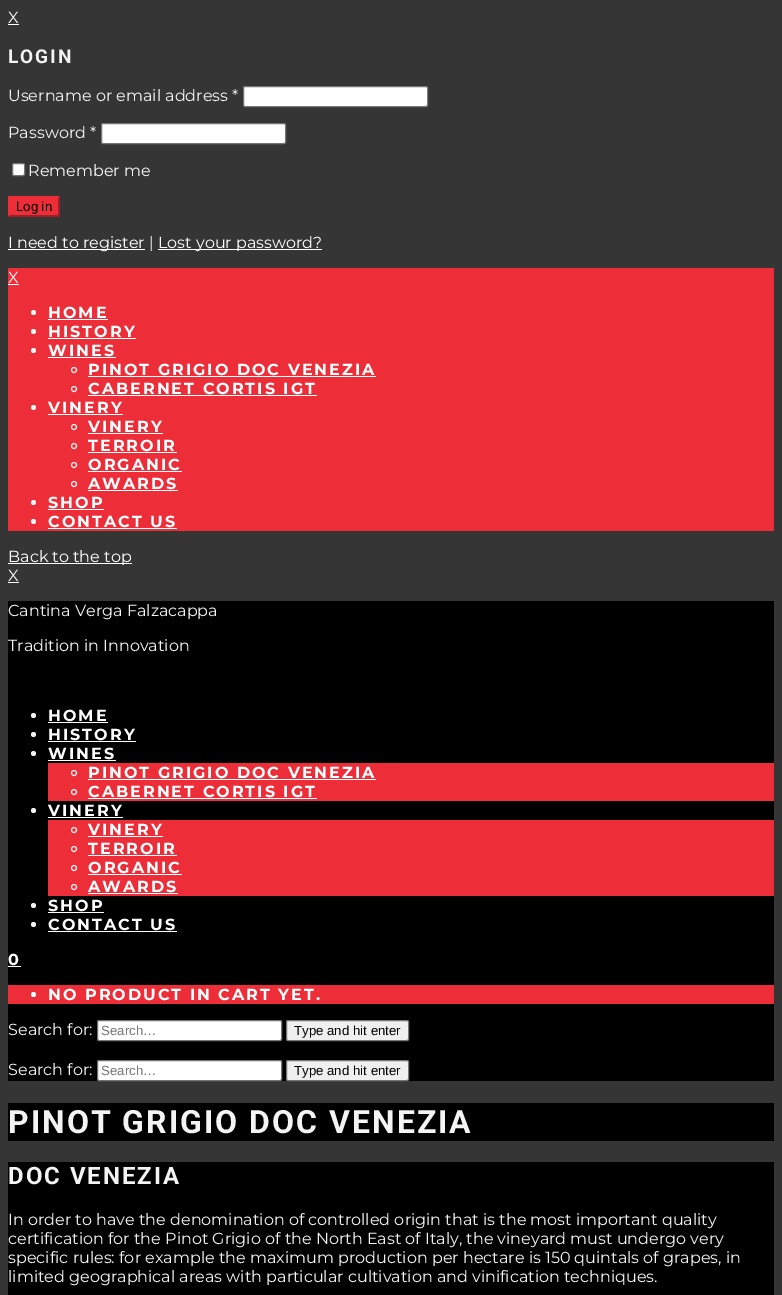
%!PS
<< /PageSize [782 1295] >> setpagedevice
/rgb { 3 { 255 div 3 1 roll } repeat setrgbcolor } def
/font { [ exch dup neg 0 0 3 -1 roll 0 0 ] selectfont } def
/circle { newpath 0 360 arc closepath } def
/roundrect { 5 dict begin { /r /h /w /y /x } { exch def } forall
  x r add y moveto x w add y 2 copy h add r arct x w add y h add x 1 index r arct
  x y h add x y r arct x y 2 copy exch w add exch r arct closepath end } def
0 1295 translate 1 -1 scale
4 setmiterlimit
53 53 53 rgb
0 0 782 1295 rectfill
255 255 255 rgb
8 24 11 1 rectfill
243.5 86.5 184 20 1.5 roundrect gsave fill grestore
118 118 118 rgb
stroke
255 255 255 rgb
101.5 123.5 184 20 1.5 roundrect gsave fill grestore
118 118 118 rgb
stroke
255 255 255 rgb
12.5 163.5 12 12 1.5 roundrect gsave fill grestore
118 118 118 rgb
stroke
237 46 56 rgb
8 196 52 21 rectfill
158 31 37 rgb
60 196 moveto 60 217 lineto 58 215 lineto 58 198 lineto closepath fill
60 217 moveto 8 217 lineto 10 215 lineto 58 215 lineto closepath fill
237 46 56 rgb
8 217 moveto 8 196 lineto 10 198 lineto 10 215 lineto closepath fill
[
  [8 249 137 1 255 255 255]
  [158 249 164 1 255 255 255]
  [8 268 766 263 237 46 56]
  [8 284 11 1 255 255 255]
] { aload pop rgb rectfill } forall
244 244 244 rgb
33.5 312.5 2.5 circle fill
255 255 255 rgb
48 319 60 1 rectfill
244 244 244 rgb
33.5 331.5 2.5 circle fill
255 255 255 rgb
48 338 88 1 rectfill
244 244 244 rgb
33.5 350.5 2.5 circle fill
255 255 255 rgb
48 357 68 1 rectfill
244 244 244 rgb
74 370 2.5 circle stroke
255 255 255 rgb
88 376 288 1 rectfill
244 244 244 rgb
74 389 2.5 circle stroke
255 255 255 rgb
88 395 229 1 rectfill
244 244 244 rgb
33.5 407.5 2.5 circle fill
255 255 255 rgb
48 414 75 1 rectfill
244 244 244 rgb
74 427 2.5 circle stroke
255 255 255 rgb
88 433 75 1 rectfill
244 244 244 rgb
74 446 2.5 circle stroke
255 255 255 rgb
88 452 89 1 rectfill
244 244 244 rgb
74 465 2.5 circle stroke
255 255 255 rgb
88 471 94 1 rectfill
244 244 244 rgb
74 484 2.5 circle stroke
255 255 255 rgb
88 490 90 1 rectfill
244 244 244 rgb
33.5 502.5 2.5 circle fill
255 255 255 rgb
48 509 56 1 rectfill
244 244 244 rgb
33.5 521.5 2.5 circle fill
[
  [48 528 129 1 255 255 255]
  [8 563 124 1 255 255 255]
  [8 582 11 1 255 255 255]
  [8 601 766 480 0 0 0]
] { aload pop rgb rectfill } forall
244 244 244 rgb
33.5 715.5 2.5 circle fill
255 255 255 rgb
48 722 60 1 rectfill
244 244 244 rgb
33.5 734.5 2.5 circle fill
255 255 255 rgb
48 741 88 1 rectfill
244 244 244 rgb
33.5 753.5 2.5 circle fill
255 255 255 rgb
48 760 68 1 rectfill
237 46 56 rgb
48 763 726 38 rectfill
244 244 244 rgb
74 773 2.5 circle stroke
255 255 255 rgb
88 779 288 1 rectfill
244 244 244 rgb
74 792 2.5 circle stroke
255 255 255 rgb
88 798 229 1 rectfill
244 244 244 rgb
33.5 810.5 2.5 circle fill
255 255 255 rgb
48 817 75 1 rectfill
237 46 56 rgb
48 820 726 76 rectfill
244 244 244 rgb
74 830 2.5 circle stroke
255 255 255 rgb
88 836 75 1 rectfill
244 244 244 rgb
74 849 2.5 circle stroke
255 255 255 rgb
88 855 89 1 rectfill
244 244 244 rgb
74 868 2.5 circle stroke
255 255 255 rgb
88 874 94 1 rectfill
244 244 244 rgb
74 887 2.5 circle stroke
255 255 255 rgb
88 893 90 1 rectfill
244 244 244 rgb
33.5 905.5 2.5 circle fill
255 255 255 rgb
48 912 56 1 rectfill
244 244 244 rgb
33.5 924.5 2.5 circle fill
[
  [48 931 129 1 255 255 255]
  [8 966 13 1 255 255 255]
  [8 985 766 19 237 46 56]
] { aload pop rgb rectfill } forall
255 255 255 rgb
33.5 994.5 2.5 circle fill
97.5 1020.5 184 20 1.5 roundrect gsave fill grestore
118 118 118 rgb
stroke
239 239 239 rgb
286.5 1020.5 122 20 1.5 roundrect gsave fill grestore
118 118 118 rgb
stroke
255 255 255 rgb
97.5 1060.5 184 20 1.5 roundrect gsave fill grestore
118 118 118 rgb
stroke
239 239 239 rgb
286.5 1060.5 122 20 1.5 roundrect gsave fill grestore
118 118 118 rgb
stroke
0 0 0 rgb
8 1103 766 38 rectfill
8 1162 766 133 rectfill
/Montserrat-Regular 16 font
255 255 255 rgb
8 23 moveto (X) show
/Roboto-Bold 19 font
244 244 244 rgb
8 63 moveto 2 0 (LOGIN) ashow
/Montserrat-Regular 16 font
[
  [(Username or email address *) 8 101]
  [(Password *) 8 138]
  [(Remember me) 28 176]
] { aload pop moveto show } forall
/Roboto-Regular 13.25 font
0 0 0 rgb
16 211 moveto (Log in) show
/Montserrat-Regular 16 font
255 255 255 rgb
8 248 moveto (I need to register) show
244 244 244 rgb
149 248 moveto (|) show
255 255 255 rgb
158 248 moveto (Lost your password?) show
8 283 moveto (X) show
/Montserrat-Bold 16 font
48 318 moveto 2 0 (HOME) ashow
48 337 moveto 2 0 (HISTORY) ashow
48 356 moveto 2 0 (WINES) ashow
88 375 moveto 2 0 (PINOT GRIGIO DOC VENEZIA) ashow
88 394 moveto 2 0 (CABERNET CORTIS IGT) ashow
48 413 moveto 2 0 (VINERY) ashow
88 432 moveto 2 0 (VINERY) ashow
88 451 moveto 2 0 (TERROIR) ashow
88 470 moveto 2 0 (ORGANIC) ashow
88 489 moveto 2 0 (AWARDS) ashow
48 508 moveto 2 0 (SHOP) ashow
48 527 moveto 2 0 (CONTACT US) ashow
/Montserrat-Regular 16 font
8 562 moveto (Back to the top) show
8 581 moveto (X) show
244 244 244 rgb
8 616 moveto (Cantina Verga Falzacappa) show
8 651 moveto (Tradition in Innovation) show
/Montserrat-Bold 16 font
255 255 255 rgb
48 721 moveto 2 0 (HOME) ashow
48 740 moveto 2 0 (HISTORY) ashow
48 759 moveto 2 0 (WINES) ashow
88 778 moveto 2 0 (PINOT GRIGIO DOC VENEZIA) ashow
88 797 moveto 2 0 (CABERNET CORTIS IGT) ashow
48 816 moveto 2 0 (VINERY) ashow
88 835 moveto 2 0 (VINERY) ashow
88 854 moveto 2 0 (TERROIR) ashow
88 873 moveto 2 0 (ORGANIC) ashow
88 892 moveto 2 0 (AWARDS) ashow
48 911 moveto 2 0 (SHOP) ashow
48 930 moveto 2 0 (CONTACT US) ashow
8 965 moveto 2 0 (0) ashow
48 1000 moveto 2 0 (NO PRODUCT IN CART YET.) ashow
/Montserrat-Regular 16 font
244 244 244 rgb
8 1035 moveto (Search for:) show
/LiberationSans-Regular 13.25 font
117 117 117 rgb
101 1035 moveto (Search…) show
0 0 0 rgb
294 1035 moveto (Type and hit enter) show
/Montserrat-Regular 16 font
244 244 244 rgb
8 1075 moveto (Search for:) show
/LiberationSans-Regular 13.25 font
117 117 117 rgb
101 1075 moveto (Search…) show
0 0 0 rgb
294 1075 moveto (Type and hit enter) show
/Roboto-Bold 32 font
244 244 244 rgb
8 1133 moveto 2 0 (PINOT GRIGIO DOC VENEZIA) ashow
/Roboto-Bold 24 font
8 1184 moveto 2 0 (DOC VENEZIA) ashow
/Montserrat-Regular 16 font
[
  [(In order to have the denomination of controlled origin that is the most important quality) 8 1225]
  [(certification for the Pinot Grigio of the North East of Italy, the vineyard must undergo very) 8 1244]
  [(specific rules: for example the maximum production per hectare is 150 quintals of grapes, in) 8 1263]
  [(limited geographical areas with particular cultivation and vinification techniques.) 8 1282]
] { aload pop moveto show } forall
showpage
